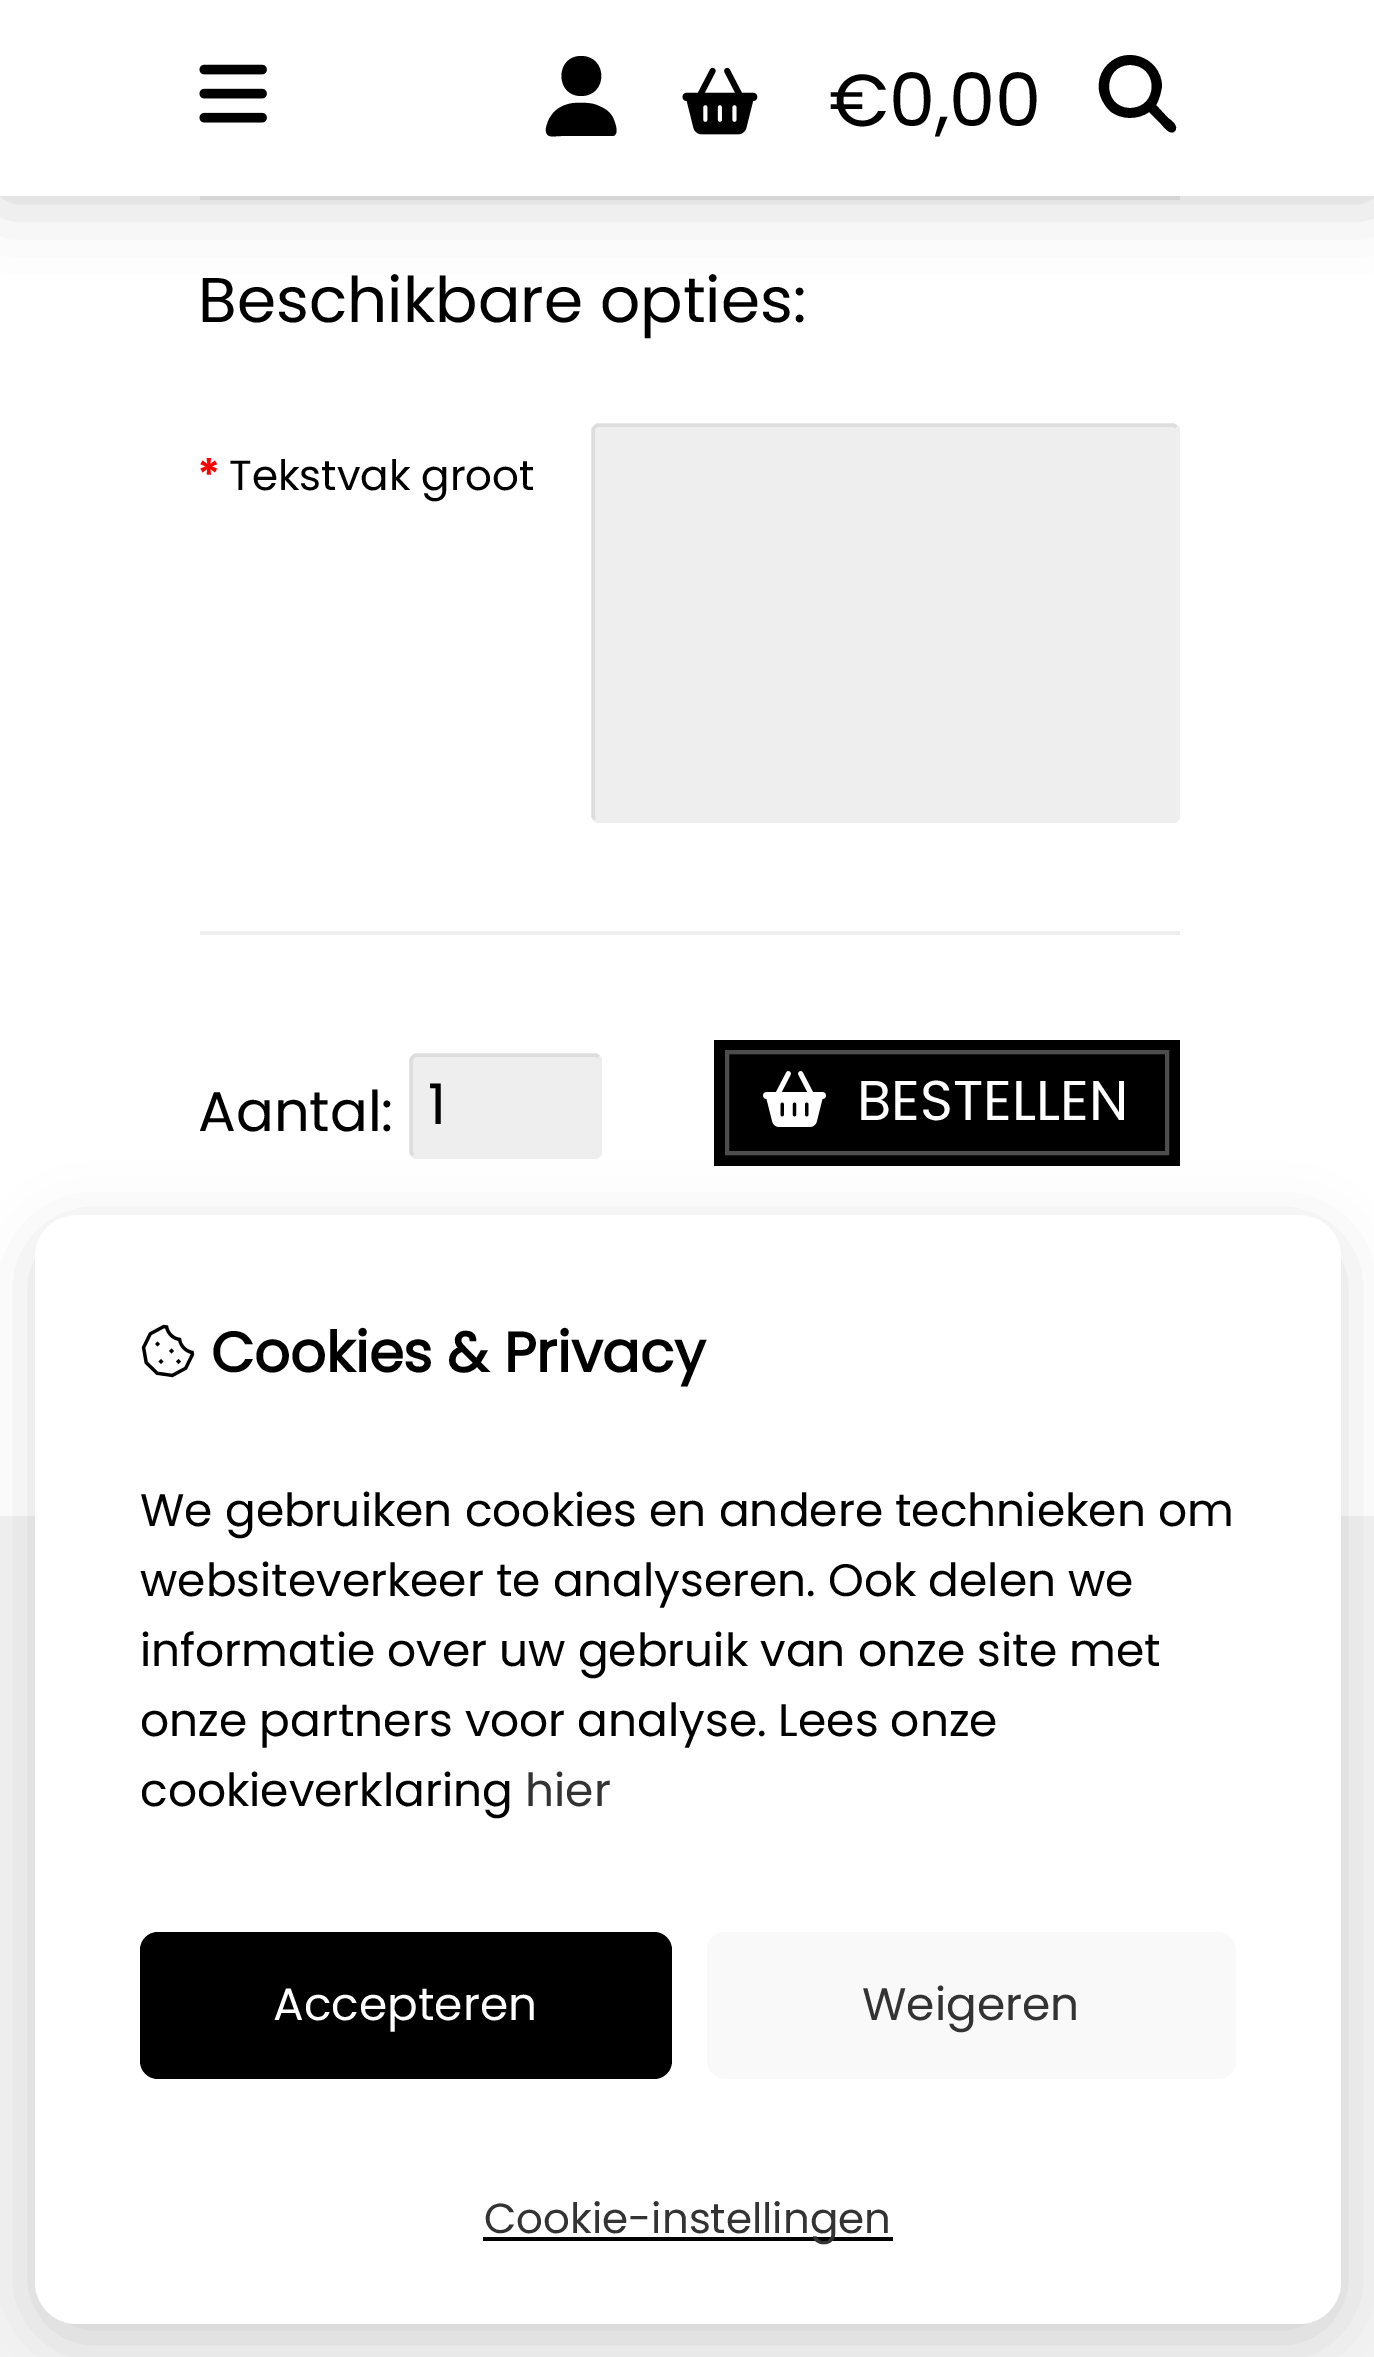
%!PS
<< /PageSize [1374 2357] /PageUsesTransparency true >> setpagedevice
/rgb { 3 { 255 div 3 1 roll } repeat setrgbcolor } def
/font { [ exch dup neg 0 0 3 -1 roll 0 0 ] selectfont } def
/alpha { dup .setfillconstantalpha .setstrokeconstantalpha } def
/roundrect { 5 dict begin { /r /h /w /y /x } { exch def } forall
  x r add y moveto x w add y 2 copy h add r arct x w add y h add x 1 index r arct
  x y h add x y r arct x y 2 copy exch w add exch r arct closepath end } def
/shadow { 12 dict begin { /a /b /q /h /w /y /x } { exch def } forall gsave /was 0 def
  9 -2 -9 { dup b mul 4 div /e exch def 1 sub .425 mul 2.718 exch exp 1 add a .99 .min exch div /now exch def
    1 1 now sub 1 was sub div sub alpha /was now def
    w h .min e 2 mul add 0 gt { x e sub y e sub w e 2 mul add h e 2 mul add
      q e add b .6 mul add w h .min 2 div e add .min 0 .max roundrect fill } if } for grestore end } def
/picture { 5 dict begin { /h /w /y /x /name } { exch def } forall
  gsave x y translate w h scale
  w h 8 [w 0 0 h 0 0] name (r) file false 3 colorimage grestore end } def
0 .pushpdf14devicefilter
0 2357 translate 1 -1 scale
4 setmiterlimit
255 255 255 rgb
0 0 1374 2357 rectfill
238 238 238 rgb
200 196 980 4 rectfill
0 0 0 rgb
0 0 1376 196 0 35 0.2 shadow
255 255 255 rgb
0 0 1374 196 rectfill
(img/1.rgb) 199 64 68 59 picture
0 0 0 rgb
581 96 moveto 608 96 608 56 581 56 curveto 555 56 555 96 581 96 curveto closepath 574 103 moveto 565 104 556 108 551 116 curveto 548 120 547 124 546 128 curveto 545 139 553 136 561 136 curveto 612 136 lineto 621 136 614 119 612 116 curveto 609 111 604 108 599 106 curveto 591 102 582 103 574 103 curveto closepath fill
(img/2.rgb) 682 67 76 68 picture
1162 86 moveto 1161 93 1159 100 1156 105 curveto 1168 118 lineto 1171 120 1179 126 1175 131 curveto 1170 136 1164 127 1161 124 curveto 1149 112 lineto 1138 120 1121 120 1110 111 curveto 1104 105 1100 98 1099 90 curveto 1098 82 1100 75 1104 69 curveto 1122 43 1161 56 1162 86 curveto closepath 1130 108 moveto 1159 108 1159 65 1130 65 curveto 1102 65 1102 108 1130 108 curveto closepath fill
238 238 238 rgb
592 424 588 399 7 roundrect fill
221 221 221 rgb
3.5 setlinewidth
595 819 moveto 594 818 593 817 593 815.5 curveto 593 430.5 lineto 593 429 594 428 595 427 curveto 596 426 597 425 598.5 425 curveto 1172.5 425 lineto 1174 425 1175 426 1176 427 curveto stroke
238 238 238 rgb
200 931 980 4 rectfill
410 1054 192 105 7 roundrect fill
598.5 1057 moveto 599.5 1058 600 1059 600 1060.5 curveto 600 1151.5 lineto 600 1153 599.5 1154 598.5 1155 curveto 597.5 1156 596.5 1157 595 1157 curveto 416.5 1157 lineto 415 1157 414 1156 413 1155 curveto stroke
221 221 221 rgb
413 1155 moveto 412 1154 411 1153 411 1151.5 curveto 411 1060.5 lineto 411 1059 412 1058 413 1057 curveto 414 1056 415 1055 416.5 1055 curveto 595 1055 lineto 596.5 1055 597.5 1056 598.5 1057 curveto stroke
0 0 0 rgb
714 1040 466 126 rectfill
77 77 77 rgb
4 setlinewidth
727 1052 440 101 rectstroke
(img/3.rgb) 763 1071 63 56 picture
243 243 243 rgb
0 1516 1374 841 rectfill
76 76 76 rgb
35 1229 1306 1109 42 30 0.2 shadow
255 255 255 rgb
35 1215 1306 1109 42 roundrect fill
(img/4.rgb) 141 1324 54 54 picture
0 0 0 rgb
140 1932 532 147 18 roundrect fill
249 249 249 rgb
707 1932 529 147 18 roundrect fill
0 0 0 rgb
483 2237 410 4 rectfill
/Poppins-Regular 73.5 font
829 126 moveto (€0,00) show
/Poppins-Regular 63 font
198 322 moveto (Beschikbare opties:) show
/Poppins-Bold 42 font
255 0 0 rgb
198 490 moveto (*) show
/Poppins-Regular 42 font
0 0 0 rgb
229 490 moveto (Tekstvak groot) show
/Poppins-Regular 56 font
198 1131 moveto (Aantal:) show
428 1124 moveto (1) show
255 255 255 rgb
857 1120 moveto (BESTELLEN) show
/Poppins-Bold 56 font
0 0 0 rgb
211 1372 moveto (Cookies & Privacy) show
/Poppins-Regular 45.5 font
[
  [(We gebruiken cookies en andere technieken om) 140 1526]
  [(websiteverkeer te analyseren. Ook delen we) 140 1596]
  [(informatie over uw gebruik van onze site met) 140 1666]
  [(onze partners voor analyse. Lees onze) 140 1736]
  [(cookieverklaring) 140 1806]
] { aload pop moveto show } forall
51 51 51 rgb
525 1806 moveto (hier) show
255 255 255 rgb
273 2020 moveto (Accepteren) show
51 51 51 rgb
862 2020 moveto (Weigeren) show
/Poppins-Regular 42 font
484 2233 moveto (Cookie-instellingen) show
.poppdf14devicefilter showpage
